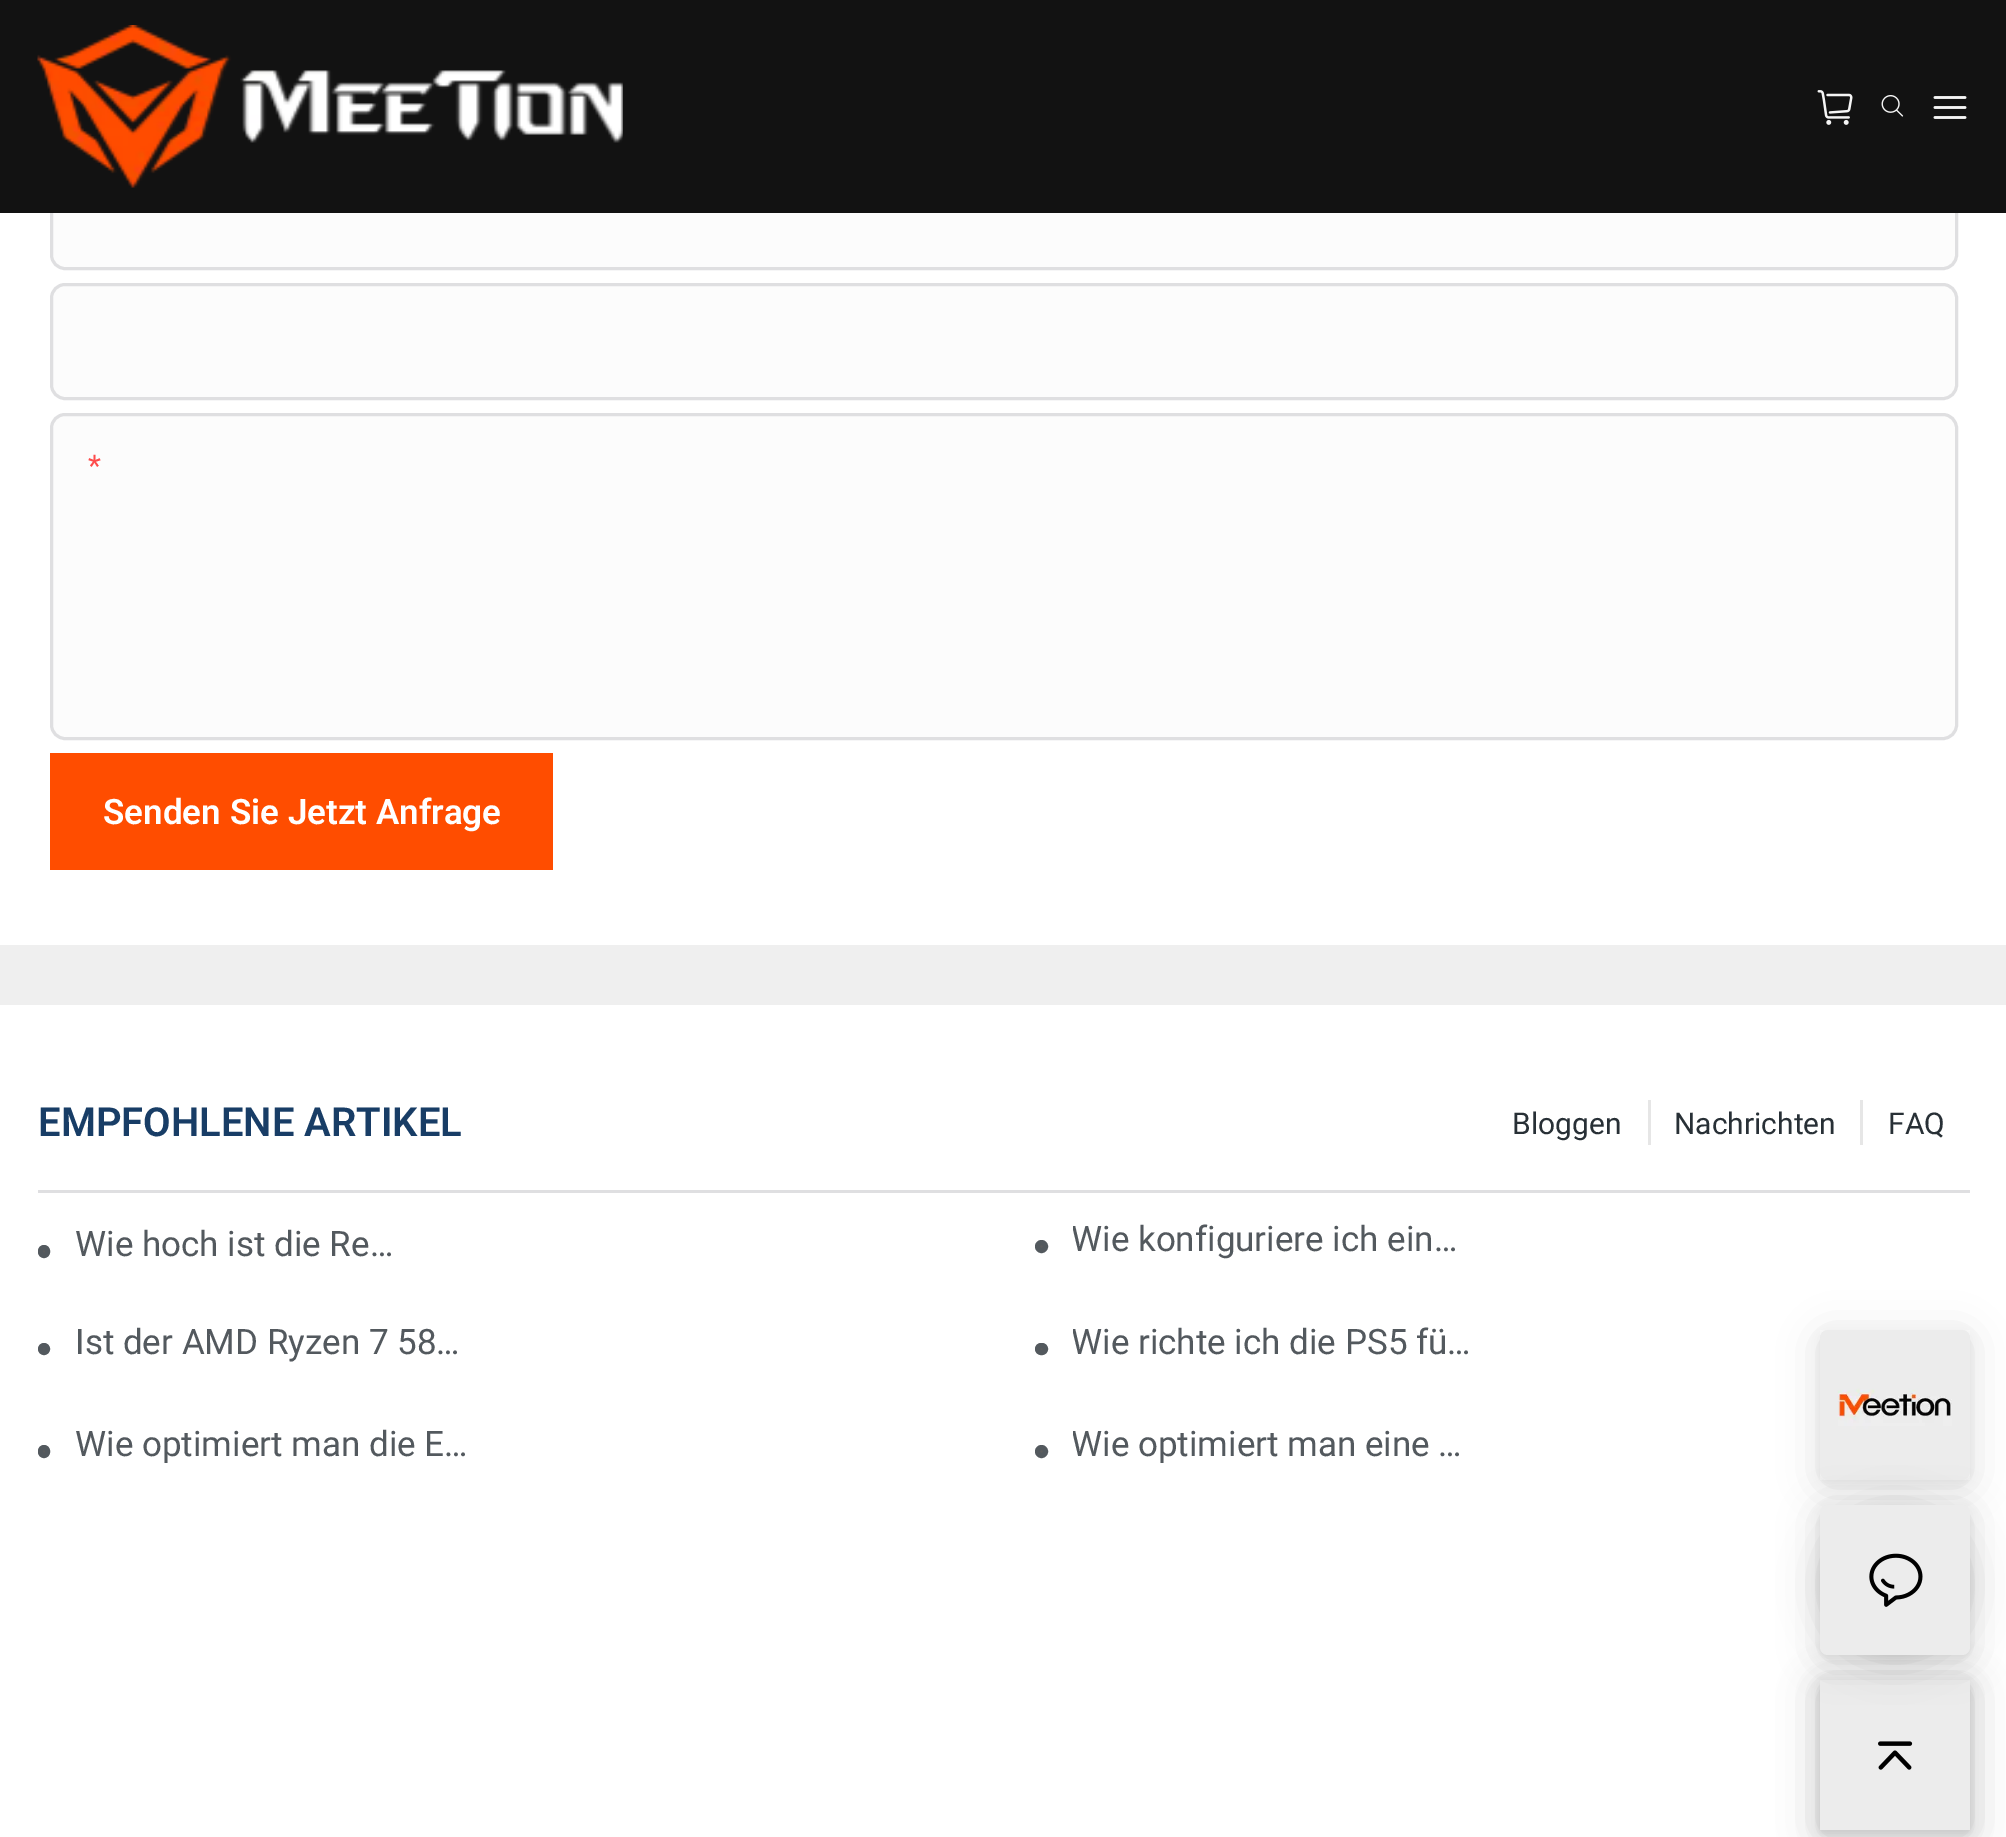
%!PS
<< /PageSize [2006 1837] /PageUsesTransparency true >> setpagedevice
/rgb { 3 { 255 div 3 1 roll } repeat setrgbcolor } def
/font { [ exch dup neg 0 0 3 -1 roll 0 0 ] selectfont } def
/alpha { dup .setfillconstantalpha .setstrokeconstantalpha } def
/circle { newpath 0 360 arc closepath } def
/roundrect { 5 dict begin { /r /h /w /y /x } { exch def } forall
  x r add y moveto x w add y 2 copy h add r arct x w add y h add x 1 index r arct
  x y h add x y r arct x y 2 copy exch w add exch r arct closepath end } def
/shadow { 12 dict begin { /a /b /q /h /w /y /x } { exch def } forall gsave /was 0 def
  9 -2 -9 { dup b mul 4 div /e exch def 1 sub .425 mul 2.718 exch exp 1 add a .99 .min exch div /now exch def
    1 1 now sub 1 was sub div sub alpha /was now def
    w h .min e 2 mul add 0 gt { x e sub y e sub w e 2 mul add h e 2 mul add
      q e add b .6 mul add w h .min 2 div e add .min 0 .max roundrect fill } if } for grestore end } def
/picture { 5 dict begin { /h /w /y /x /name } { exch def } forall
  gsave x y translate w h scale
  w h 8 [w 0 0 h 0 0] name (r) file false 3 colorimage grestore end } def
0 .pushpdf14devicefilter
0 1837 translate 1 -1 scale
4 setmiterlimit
255 255 255 rgb
0 0 2006 1837 rectfill
252 252 252 rgb
51.5 154.5 1905 114 13.5 roundrect gsave fill grestore
223 223 225 rgb
3 setlinewidth
stroke
18 18 18 rgb
0 0 2006 213 rectfill
(img/1.rgb) 37 25 586 163 picture
(img/2.rgb) 1817 90 36 35 picture
(img/3.rgb) 1881 95 23 22 picture
(img/4.rgb) 1933 96 34 23 picture
239 239 239 rgb
0 945 2006 60 rectfill
252 252 252 rgb
51.5 284.5 1905 114 13.5 roundrect gsave fill grestore
223 223 225 rgb
stroke
252 252 252 rgb
51.5 414.5 1905 324 13.5 roundrect gsave fill grestore
223 223 225 rgb
stroke
[
  [50 753 503 117 255 77 0]
  [38 1190 1932 3 223 223 225]
  [1648 1100 3 45 230 230 230]
  [1860 1100 3 45 230 230 230]
] { aload pop rgb rectfill } forall
92 92 92 rgb
40.5 1247.5 7 8 3.5 roundrect gsave fill grestore
83 89 94 rgb
5 setlinewidth
stroke
92 92 92 rgb
1041.5 1246.5 4 circle gsave fill grestore
83 89 94 rgb
stroke
92 92 92 rgb
44 1349 3.5 circle gsave fill grestore
83 89 94 rgb
stroke
92 92 92 rgb
1037.5 1345.5 8 7 3.5 roundrect gsave fill grestore
83 89 94 rgb
stroke
92 92 92 rgb
40.5 1447.5 7 8 3.5 roundrect gsave fill grestore
83 89 94 rgb
stroke
92 92 92 rgb
1041.5 1451.5 4 circle gsave fill grestore
83 89 94 rgb
stroke
0 0 0 rgb
1820 1685 150 150 8 20 0.12 shadow
1820 1683 150 150 8 5 0.06 shadow
1820 1685 150 150 0 20 0.12 shadow
1820 1683 150 150 0 5 0.06 shadow
236 236 236 rgb
1820 1680 150 150 rectfill
0 0 0 rgb
1820 1335 150 150 8 20 0.12 shadow
1820 1333 150 150 8 5 0.06 shadow
(img/7.rgb) 1820 1330 150 150 picture
1820 1510 150 150 75 20 0.12 shadow
1820 1508 150 150 75 5 0.06 shadow
1820 1510 150 150 8 20 0.12 shadow
1820 1508 150 150 8 5 0.06 shadow
236 236 236 rgb
1820 1505 150 150 8 roundrect fill
(img/5.rgb) 1869 1553 54 54 picture
(img/6.rgb) 1878 1741 35 29 picture
/Roboto-Regular 30 font
254 76 76 rgb
88 476 moveto (*) show
/Roboto-SemiBold 35 font
255 255 255 rgb
103 824 moveto (Senden Sie Jetzt Anfrage) show
/Roboto-SemiBold 40 font
24 61 102 rgb
38 1136 moveto (EMPFOHLENE ARTIKEL) show
/Roboto-Regular 30 font
40 48 54 rgb
[
  [(Bloggen) 1512 1134]
  [(Nachrichten) 1674 1134]
  [(FAQ) 1888 1134]
] { aload pop moveto show } forall
/Roboto-Regular 35 font
83 89 94 rgb
75 1256 moveto (Wie hoch ist die Re…) show
gsave
1073 1213 400 52 rectclip
1071 1251 moveto (Wie konfiguriere ich ein…) show
grestore
75 1354 moveto (Ist der AMD Ryzen 7 58…) show
gsave
1073 1315 400 53 rectclip
1071 1354 moveto (Wie richte ich die PS5 fü…) show
grestore
75 1456 moveto (Wie optimiert man die E…) show
gsave
1073 1418 400 52 rectclip
1071 1456 moveto (Wie optimiert man eine …) show
grestore
.poppdf14devicefilter showpage
